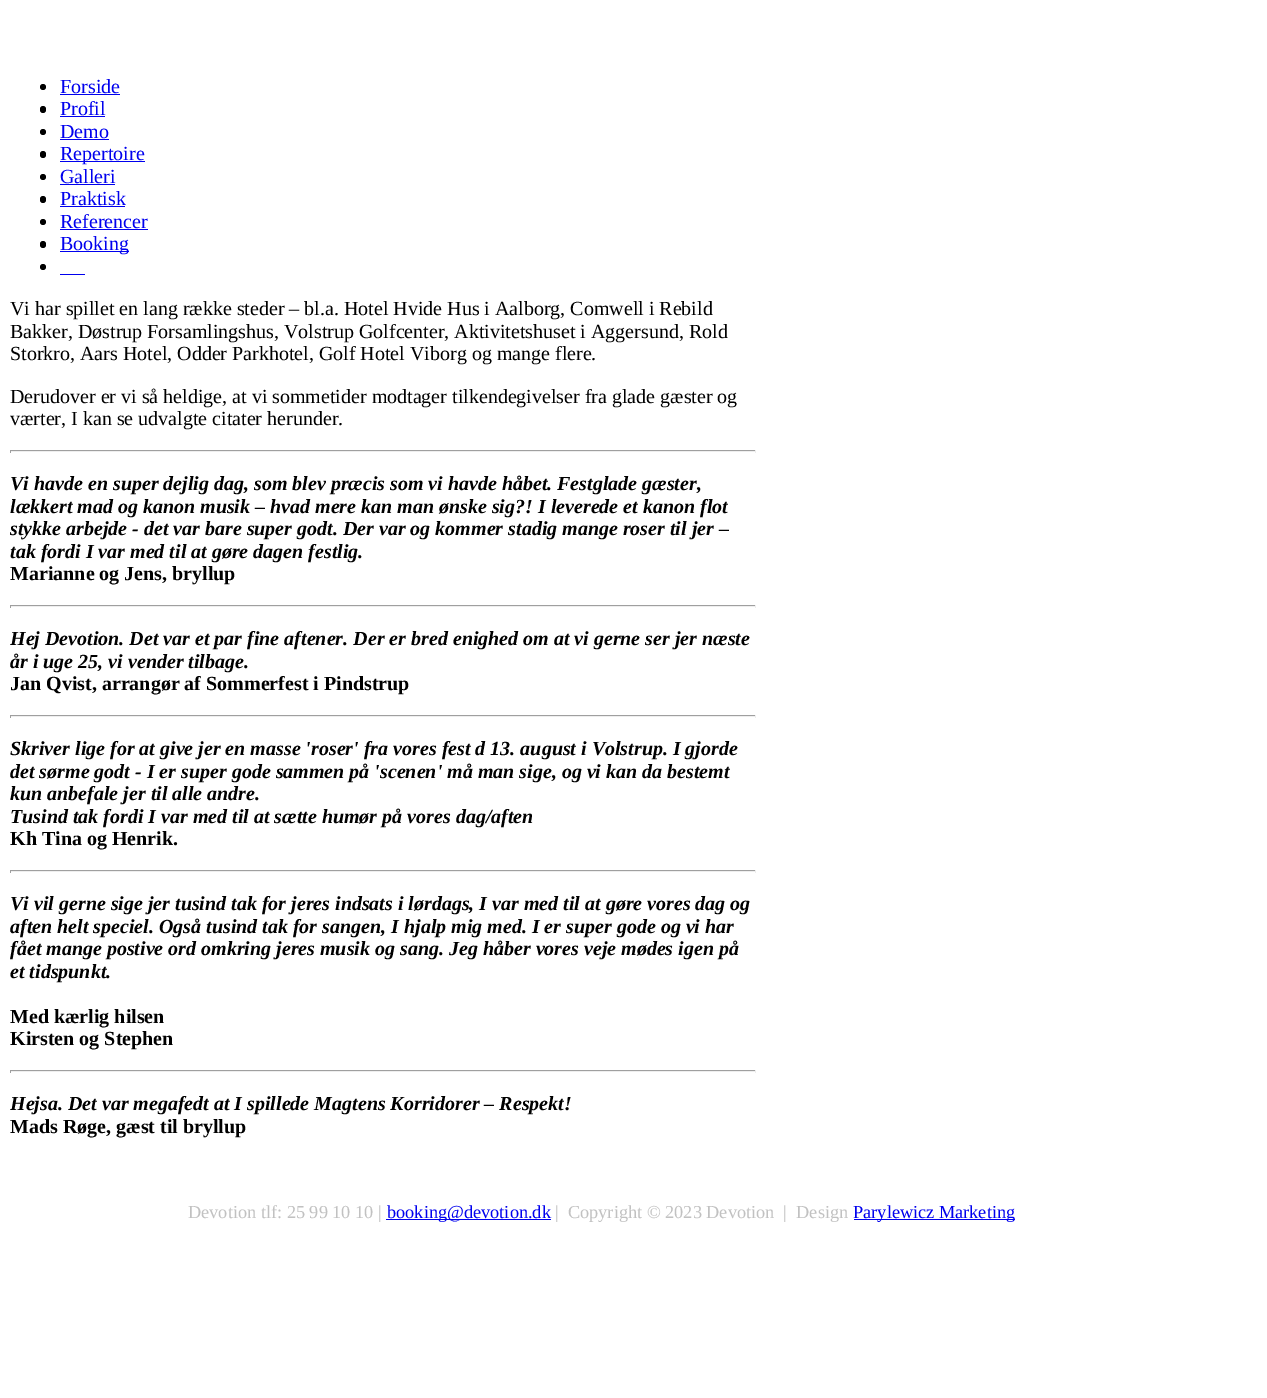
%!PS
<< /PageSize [1267 1398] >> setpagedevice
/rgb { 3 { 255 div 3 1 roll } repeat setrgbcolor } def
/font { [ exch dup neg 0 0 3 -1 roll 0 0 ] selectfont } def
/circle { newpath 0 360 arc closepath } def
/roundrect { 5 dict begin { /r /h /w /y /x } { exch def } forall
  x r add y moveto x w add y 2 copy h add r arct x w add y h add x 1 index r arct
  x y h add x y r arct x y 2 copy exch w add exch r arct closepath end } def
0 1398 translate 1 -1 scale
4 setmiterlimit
255 255 255 rgb
0 0 1267 1398 rectfill
0 0 0 rgb
43 87 3 circle fill
0 0 238 rgb
60 94 60 1 rectfill
0 0 0 rgb
40 106 6 7 3 roundrect fill
0 0 238 rgb
60 116 45 1 rectfill
0 0 0 rgb
43 132 3 circle fill
0 0 238 rgb
60 139 49 1 rectfill
0 0 0 rgb
40 151 6 7 3 roundrect fill
0 0 238 rgb
60 161 85 1 rectfill
0 0 0 rgb
43 177 3 circle fill
0 0 238 rgb
60 184 55 1 rectfill
0 0 0 rgb
40 196 6 7 3 roundrect fill
0 0 238 rgb
60 206 65 1 rectfill
0 0 0 rgb
43 222 3 circle fill
0 0 238 rgb
60 229 88 1 rectfill
0 0 0 rgb
40 241 6 7 3 roundrect fill
0 0 238 rgb
60 251 69 1 rectfill
0 0 0 rgb
43 267 3 circle fill
[
  [60 274 25 1 0 0 238]
  [10 450 746 1 159 159 159]
  [755 450 1 3 238 238 238]
  [10 451 746 1 238 238 238]
  [10 450 1 3 159 159 159]
  [10 605 746 1 159 159 159]
  [755 605 1 3 238 238 238]
  [10 606 746 1 238 238 238]
  [10 605 1 3 159 159 159]
  [10 715 746 1 159 159 159]
  [755 715 1 3 238 238 238]
  [10 716 746 1 238 238 238]
  [10 715 1 3 159 159 159]
  [10 870 746 1 159 159 159]
  [755 870 1 3 238 238 238]
  [10 871 746 1 238 238 238]
  [10 870 1 3 159 159 159]
  [10 1070 746 1 159 159 159]
  [755 1070 1 3 238 238 238]
  [10 1071 746 1 238 238 238]
  [10 1070 1 3 159 159 159]
  [386 1219 165 1 0 0 238]
  [854 1219 161 1 0 0 238]
] { aload pop rgb rectfill } forall
/LiberationSerif-Regular 20 font
[
  [(Forside) 60 93]
  [(Profil) 60 115]
  [(Demo) 60 138]
  [(Repertoire) 60 160]
  [(Galleri) 60 183]
  [(Praktisk) 60 205]
  [(Referencer) 60 228]
  [(Booking) 60 250]
] { aload pop moveto show } forall
0 0 0 rgb
[
  [(Vi har spillet en lang række steder – bl.a. Hotel Hvide Hus i Aalborg, Comwell i Rebild) 10 315]
  [(Bakker, Døstrup Forsamlingshus, Volstrup Golfcenter, Aktivitetshuset i Aggersund, Rold) 10 338]
  [(Storkro, Aars Hotel, Odder Parkhotel, Golf Hotel Viborg og mange flere.) 10 360]
  [(Derudover er vi så heldige, at vi sommetider modtager tilkendegivelser fra glade gæster og) 10 403]
  [(værter, I kan se udvalgte citater herunder.) 10 425]
] { aload pop moveto show } forall
/LiberationSerif-BoldItalic 20 font
[
  [(Vi havde en super dejlig dag, som blev præcis som vi havde håbet. Festglade gæster,) 10 490]
  [(lækkert mad og kanon musik – hvad mere kan man ønske sig?! I leverede et kanon flot) 10 513]
  [(stykke arbejde - det var bare super godt. Der var og kommer stadig mange roser til jer –) 10 535]
  [(tak fordi I var med til at gøre dagen festlig.) 10 558]
] { aload pop moveto show } forall
/LiberationSerif-Bold 20 font
10 580 moveto (Marianne og Jens, bryllup) show
/LiberationSerif-BoldItalic 20 font
10 645 moveto (Hej Devotion. Det var et par fine aftener. Der er bred enighed om at vi gerne ser jer næste) show
10 668 moveto (år i uge 25, vi vender tilbage.) show
/LiberationSerif-Bold 20 font
10 690 moveto (Jan Qvist, arrangør af Sommerfest i Pindstrup) show
/LiberationSerif-BoldItalic 20 font
[
  [(Skriver lige for at give jer en masse 'roser' fra vores fest d 13. august i Volstrup. I gjorde) 10 755]
  [(det sørme godt - I er super gode sammen på 'scenen' må man sige, og vi kan da bestemt) 10 778]
  [(kun anbefale jer til alle andre.) 10 800]
  [(Tusind tak fordi I var med til at sætte humør på vores dag/aften) 10 823]
] { aload pop moveto show } forall
/LiberationSerif-Bold 20 font
10 845 moveto (Kh Tina og Henrik.) show
/LiberationSerif-BoldItalic 20 font
[
  [(Vi vil gerne sige jer tusind tak for jeres indsats i lørdags, I var med til at gøre vores dag og) 10 910]
  [(aften helt speciel. Også tusind tak for sangen, I hjalp mig med. I er super gode og vi har) 10 933]
  [(fået mange postive ord omkring jeres musik og sang. Jeg håber vores veje mødes igen på) 10 955]
  [(et tidspunkt.) 10 978]
] { aload pop moveto show } forall
/LiberationSerif-Bold 20 font
10 1023 moveto (Med kærlig hilsen) show
10 1045 moveto (Kirsten og Stephen) show
/LiberationSerif-BoldItalic 20 font
10 1110 moveto (Hejsa. Det var megafedt at I spillede Magtens Korridorer – Respekt!) show
/LiberationSerif-Bold 20 font
10 1133 moveto (Mads Røge, gæst til bryllup) show
/LiberationSerif-Regular 18.3 font
193 193 193 rgb
188 1218 moveto (Devotion tlf: 25 99 10 10 |) show
0 0 238 rgb
387 1218 moveto (booking@devotion.dk) show
193 193 193 rgb
555 1218 moveto (|  Copyright © 2023 Devotion  |  Design) show
0 0 238 rgb
853 1218 moveto (Parylewicz Marketing) show
showpage
